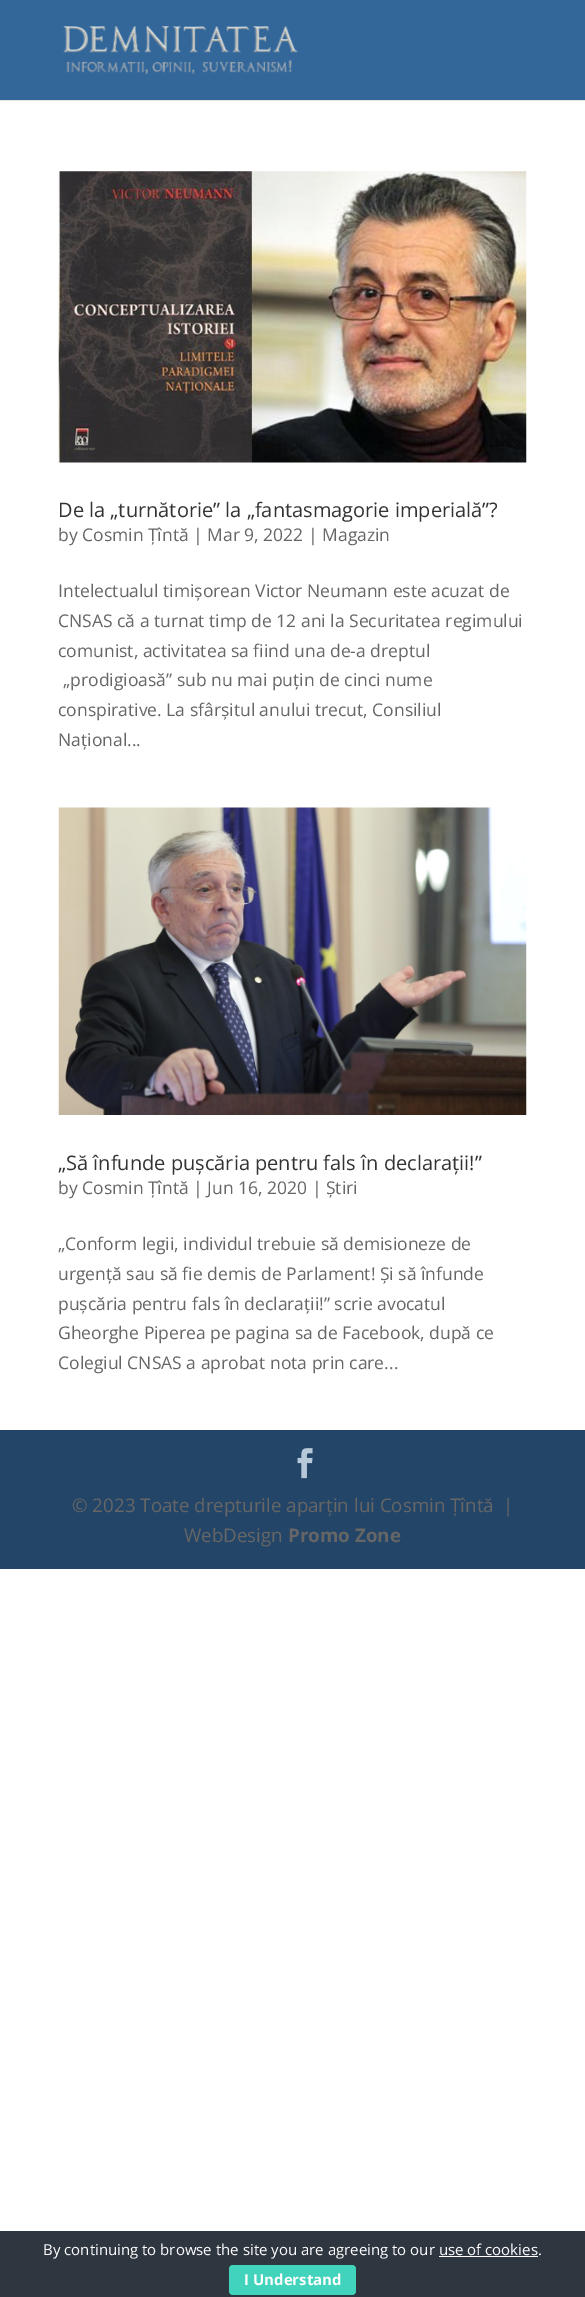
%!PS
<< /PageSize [585 2297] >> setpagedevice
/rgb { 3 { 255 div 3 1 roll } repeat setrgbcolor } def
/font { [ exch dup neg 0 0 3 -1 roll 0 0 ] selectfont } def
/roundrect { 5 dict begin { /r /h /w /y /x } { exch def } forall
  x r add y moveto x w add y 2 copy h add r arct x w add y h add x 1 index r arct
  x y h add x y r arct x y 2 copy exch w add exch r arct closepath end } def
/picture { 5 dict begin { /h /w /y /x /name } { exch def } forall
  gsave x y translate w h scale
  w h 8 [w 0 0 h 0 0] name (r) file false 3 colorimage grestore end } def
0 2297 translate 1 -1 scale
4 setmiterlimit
255 255 255 rgb
0 0 585 2297 rectfill
230 230 230 rgb
0 100 585 1 rectfill
51 102 153 rgb
0 0 585 100 rectfill
(img/1.rgb) 63 26 235 49 picture
(img/2.rgb) 58 171 469 292 picture
(img/3.rgb) 58 807 469 308 picture
35 69 104 rgb
0 1430 585 139 rectfill
(img/4.rgb) 297 1448 16 31 picture
46 54 63 rgb
0 2231 585 66 rectfill
255 255 255 rgb
439 2256 99 1 rectfill
65 211 187 rgb
229 2265 127 30 4 roundrect fill
/OpenSans-Regular 20 font
51 51 51 rgb
58 517 moveto (De la „turnătorie” la „fantasmagorie imperială”?) show
/OpenSans-Regular 17.5 font
102 102 102 rgb
[
  [(by Cosmin Țîntă | Mar 9, 2022 | Magazin) 58 541]
  [(Intelectualul timișorean Victor Neumann este acuzat de) 58 597]
  [(CNSAS că a turnat timp de 12 ani la Securitatea regimului) 58 627]
  [(comunist, activitatea sa fiind una de-a dreptul) 58 657]
  [(„prodigioasă” sub nu mai puțin de cinci nume) 63 686]
  [(conspirative. La sfârșitul anului trecut, Consiliul) 58 716]
  [(Național...) 58 746]
] { aload pop moveto show } forall
/OpenSans-Regular 20 font
51 51 51 rgb
58 1170 moveto („Să înfunde pușcăria pentru fals în declarații!”) show
/OpenSans-Regular 17.5 font
102 102 102 rgb
[
  [(by Cosmin Țîntă | Jun 16, 2020 | Știri) 58 1194]
  [(„Conform legii, individul trebuie să demisioneze de) 58 1250]
  [(urgență sau să fie demis de Parlament! Și să înfunde) 58 1280]
  [(pușcăria pentru fals în declarații!” scrie avocatul) 58 1310]
  [(Gheorghe Piperea pe pagina sa de Facebook, după ce) 58 1339]
  [(Colegiul CNSAS a aprobat nota prin care...) 58 1369]
] { aload pop moveto show } forall
/OpenSans-Regular 18.75 font
[
  [(© 2023 Toate drepturile aparțin lui Cosmin Țîntă) 72 1512]
  [(|) 503 1512]
  [(WebDesign) 184 1542]
] { aload pop moveto show } forall
/OpenSans-Bold 18.75 font
288 1542 moveto (Promo Zone) show
/OpenSans-Regular 15 font
255 255 255 rgb
43 2255 moveto (By continuing to browse the site you are agreeing to our use of cookies.) show
/OpenSans-Bold 15 font
244 2285 moveto (I Understand) show
showpage
